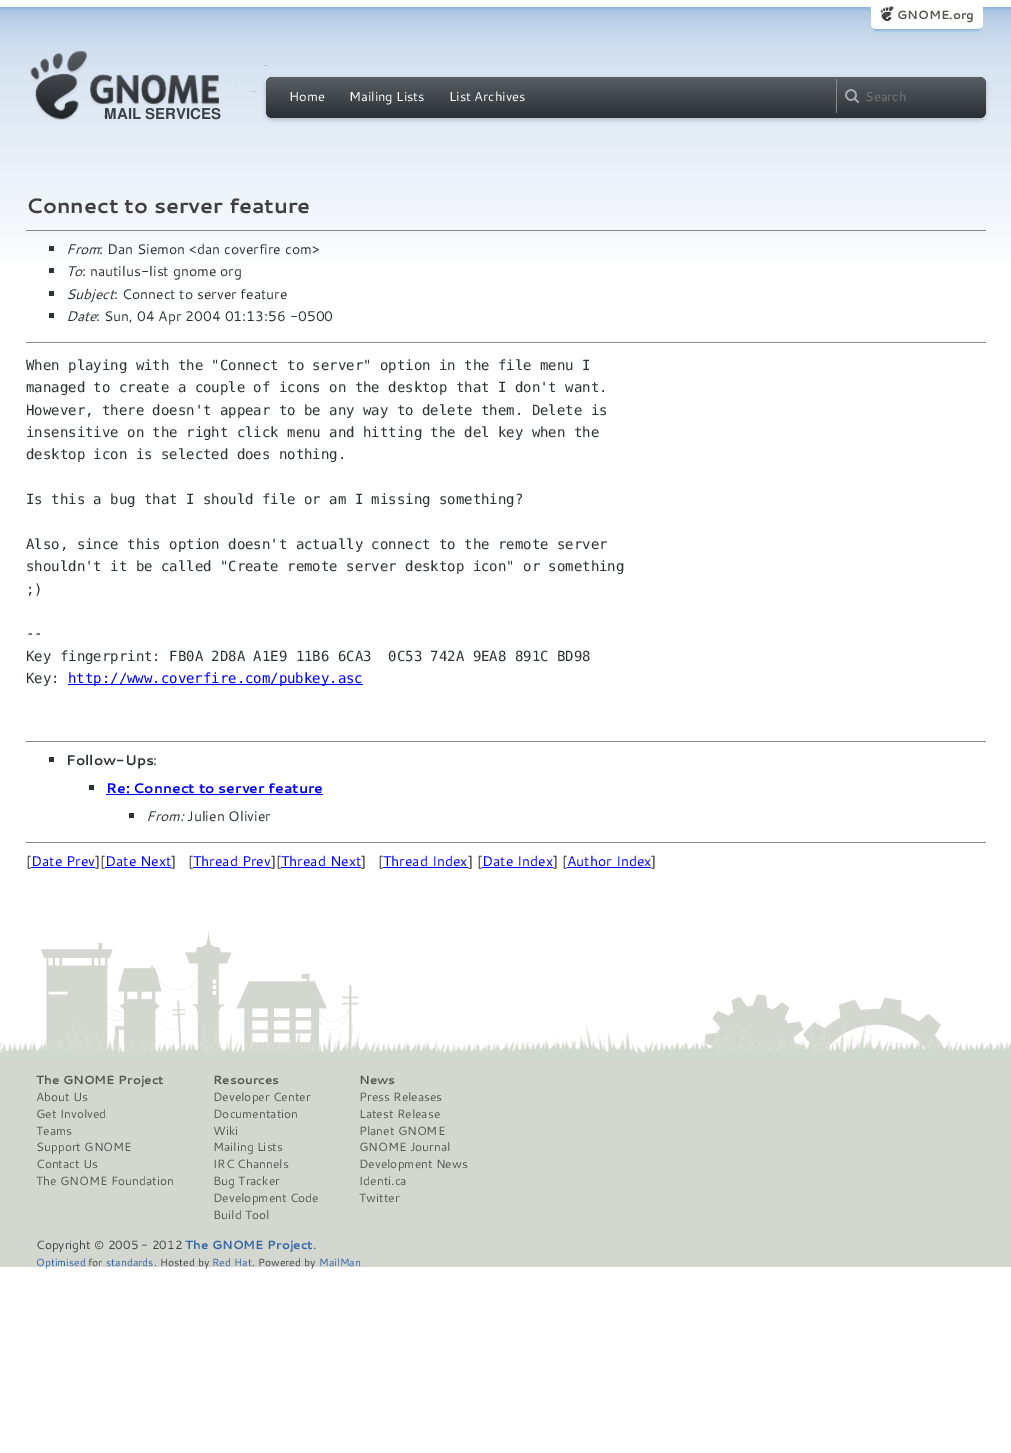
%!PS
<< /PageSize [1011 1453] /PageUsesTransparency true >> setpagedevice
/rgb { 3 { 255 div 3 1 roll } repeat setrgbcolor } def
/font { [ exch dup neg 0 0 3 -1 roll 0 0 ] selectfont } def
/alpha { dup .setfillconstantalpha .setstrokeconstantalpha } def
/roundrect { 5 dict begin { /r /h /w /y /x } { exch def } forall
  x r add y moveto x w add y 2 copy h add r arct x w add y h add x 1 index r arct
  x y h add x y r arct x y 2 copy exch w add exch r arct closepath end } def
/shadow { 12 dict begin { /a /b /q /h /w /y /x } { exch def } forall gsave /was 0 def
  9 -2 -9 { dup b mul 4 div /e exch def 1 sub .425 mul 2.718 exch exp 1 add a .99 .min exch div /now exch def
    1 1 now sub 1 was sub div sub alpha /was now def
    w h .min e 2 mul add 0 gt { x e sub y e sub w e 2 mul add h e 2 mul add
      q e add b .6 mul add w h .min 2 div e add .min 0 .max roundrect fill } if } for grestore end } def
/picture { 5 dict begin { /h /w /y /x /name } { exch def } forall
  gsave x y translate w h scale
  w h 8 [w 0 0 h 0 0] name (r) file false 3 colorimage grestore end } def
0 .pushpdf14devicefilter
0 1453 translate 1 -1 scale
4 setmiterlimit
255 255 255 rgb
0 0 1011 1453 rectfill
(img/1.rgb) 0 7 1011 252 picture
143 179 217 rgb
873 7 108 24 3 1 1 shadow
255 255 255 rgb
871 1 112 28 5 roundrect fill
(img/2.rgb) 880 6 14 15 picture
(img/3.rgb) 30 51 238 69 picture
0 0 0 rgb
266 79 720 41 6 2 0.2 shadow
46 52 54 rgb
266 77 720 41 6 roundrect fill
(img/4.rgb) 266 77 720 40 picture
(img/5.rgb) 845 89 15 15 picture
[
  [836 79 1 34 136 136 136]
  [26 230 960 1 136 136 136]
  [49 246 5 5 46 52 54]
  [49 268 5 5 46 52 54]
  [49 291 5 5 46 52 54]
  [49 313 5 5 46 52 54]
  [26 342 960 1 136 136 136]
  [68 684 295 1 0 0 255]
  [26 741 960 1 136 136 136]
  [49 757 5 5 46 52 54]
  [89 785 5 5 46 52 54]
  [106 794 217 1 0 0 255]
  [129 813 5 5 46 52 54]
  [26 842 960 1 136 136 136]
  [31 867 64 1 0 0 255]
  [105 867 66 1 0 0 255]
  [193 867 78 1 0 0 255]
  [281 867 80 1 0 0 255]
  [383 867 85 1 0 0 255]
  [482 867 71 1 0 0 255]
  [567 867 84 1 0 0 255]
] { aload pop rgb rectfill } forall
(img/6.rgb) 41 931 918 121 picture
(img/7.rgb) 0 1021 1011 37 picture
211 215 207 rgb
0 1058 1011 209 rectfill
/Cantarell-Bold 12 font
85 87 83 rgb
897 19 moveto (GNOME.org) show
/Cantarell-Regular 13 font
255 255 255 rgb
[
  [(Home) 289 101]
  [(Mailing Lists) 349 101]
  [(List Archives) 449 101]
] { aload pop moveto show } forall
117 117 117 rgb
865 101 moveto (Search) show
/Cantarell-Bold 21 font
63 63 63 rgb
26 213 moveto (Connect to server feature) show
/Cantarell-Italic 14 font
46 52 54 rgb
66 254 moveto (From) show
/Cantarell-Regular 14 font
99 254 moveto (: Dan Siemon <dan coverfire com>) show
/Cantarell-Italic 14 font
66 276 moveto (To) show
/Cantarell-Regular 14 font
82 276 moveto (: nautilus-list gnome org) show
/Cantarell-Italic 14 font
66 299 moveto (Subject) show
/Cantarell-Regular 14 font
114 299 moveto (: Connect to server feature) show
/Cantarell-Italic 14 font
66 321 moveto (Date) show
/Cantarell-Regular 14 font
96 321 moveto (: Sun, 04 Apr 2004 01:13:56 -0500) show
/DejaVuSansMono-Regular 14 font
[
  [(When playing with the "Connect to server" option in the file menu I) 26 370]
  [(managed to create a couple of icons on the desktop that I don't want.) 26 392]
  [(However, there doesn't appear to be any way to delete them. Delete is) 26 415]
  [(insensitive on the right click menu and hitting the del key when the) 26 437]
  [(desktop icon is selected does nothing.) 26 459]
  [(Is this a bug that I should file or am I missing something?) 26 504]
  [(Also, since this option doesn't actually connect to the remote server) 26 549]
  [(shouldn't it be called "Create remote server desktop icon" or something) 26 571]
  [(;\)) 26 594]
  [(--) 26 638]
  [(Key fingerprint: FB0A 2D8A A1E9 11B6 6CA3  0C53 742A 9EA8 891C BD98) 26 661]
  [(Key:) 26 683]
] { aload pop moveto show } forall
0 0 255 rgb
68 683 moveto (http://www.coverfire.com/pubkey.asc) show
/Cantarell-Bold 14 font
46 52 54 rgb
66 765 moveto (Follow-Ups) show
/Cantarell-Regular 14 font
153 765 moveto (:) show
/Cantarell-Bold 14 font
0 0 255 rgb
106 793 moveto (Re: Connect to server feature) show
/Cantarell-Italic 14 font
46 52 54 rgb
146 821 moveto (From:) show
/Cantarell-Regular 14 font
187 821 moveto (Julien Olivier) show
26 866 moveto ([) show
0 0 255 rgb
31 866 moveto (Date Prev) show
46 52 54 rgb
95 866 moveto (][) show
0 0 255 rgb
105 866 moveto (Date Next) show
46 52 54 rgb
171 866 moveto (]   [) show
0 0 255 rgb
193 866 moveto (Thread Prev) show
46 52 54 rgb
271 866 moveto (][) show
0 0 255 rgb
281 866 moveto (Thread Next) show
46 52 54 rgb
361 866 moveto (]) show
378 866 moveto ([) show
0 0 255 rgb
383 866 moveto (Thread Index) show
46 52 54 rgb
468 866 moveto (] [) show
0 0 255 rgb
482 866 moveto (Date Index) show
46 52 54 rgb
553 866 moveto (] [) show
0 0 255 rgb
567 866 moveto (Author Index) show
46 52 54 rgb
651 866 moveto (]) show
/Cantarell-Bold 12 font
85 87 83 rgb
36 1084 moveto (The GNOME Project) show
/Cantarell-Regular 12 font
[
  [(About Us) 36 1101]
  [(Get Involved) 36 1118]
  [(Teams) 36 1135]
  [(Support GNOME) 36 1151]
  [(Contact Us) 36 1168]
  [(The GNOME Foundation) 36 1185]
] { aload pop moveto show } forall
/Cantarell-Bold 12 font
213 1084 moveto (Resources) show
/Cantarell-Regular 12 font
[
  [(Developer Center) 213 1101]
  [(Documentation) 213 1118]
  [(Wiki) 213 1135]
  [(Mailing Lists) 213 1151]
  [(IRC Channels) 213 1168]
  [(Bug Tracker) 213 1185]
  [(Development Code) 213 1202]
  [(Build Tool) 213 1219]
] { aload pop moveto show } forall
/Cantarell-Bold 12 font
359 1084 moveto (News) show
/Cantarell-Regular 12 font
[
  [(Press Releases) 359 1101]
  [(Latest Release) 359 1118]
  [(Planet GNOME) 359 1135]
  [(GNOME Journal) 359 1151]
  [(Development News) 359 1168]
  [(Identi.ca) 359 1185]
  [(Twitter) 359 1202]
] { aload pop moveto show } forall
63 68 72 rgb
36 1249 moveto (Copyright © 2005 - 2012) show
/Cantarell-Bold 12 font
52 101 164 rgb
185 1249 moveto (The GNOME Project) show
/Cantarell-Regular 12 font
63 68 72 rgb
313 1249 moveto (.) show
/Cantarell-Regular 10.5 font
52 101 164 rgb
36 1266 moveto (Optimised) show
63 68 72 rgb
88 1266 moveto (for) show
52 101 164 rgb
106 1266 moveto (standards) show
63 68 72 rgb
154 1266 moveto (. Hosted by) show
52 101 164 rgb
212 1266 moveto (Red Hat) show
63 68 72 rgb
252 1266 moveto (. Powered by) show
52 101 164 rgb
319 1266 moveto (MailMan) show
.poppdf14devicefilter showpage
